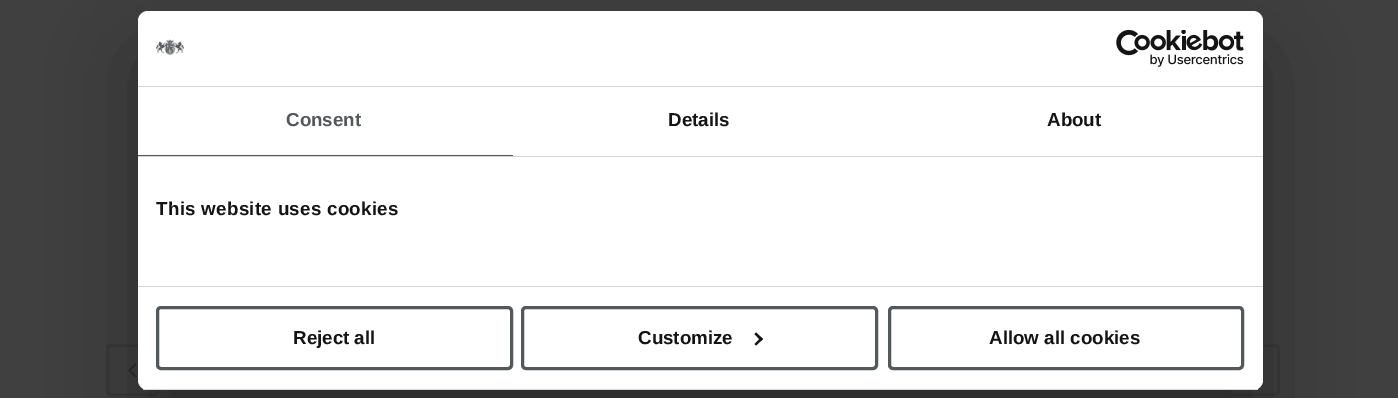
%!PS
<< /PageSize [1398 398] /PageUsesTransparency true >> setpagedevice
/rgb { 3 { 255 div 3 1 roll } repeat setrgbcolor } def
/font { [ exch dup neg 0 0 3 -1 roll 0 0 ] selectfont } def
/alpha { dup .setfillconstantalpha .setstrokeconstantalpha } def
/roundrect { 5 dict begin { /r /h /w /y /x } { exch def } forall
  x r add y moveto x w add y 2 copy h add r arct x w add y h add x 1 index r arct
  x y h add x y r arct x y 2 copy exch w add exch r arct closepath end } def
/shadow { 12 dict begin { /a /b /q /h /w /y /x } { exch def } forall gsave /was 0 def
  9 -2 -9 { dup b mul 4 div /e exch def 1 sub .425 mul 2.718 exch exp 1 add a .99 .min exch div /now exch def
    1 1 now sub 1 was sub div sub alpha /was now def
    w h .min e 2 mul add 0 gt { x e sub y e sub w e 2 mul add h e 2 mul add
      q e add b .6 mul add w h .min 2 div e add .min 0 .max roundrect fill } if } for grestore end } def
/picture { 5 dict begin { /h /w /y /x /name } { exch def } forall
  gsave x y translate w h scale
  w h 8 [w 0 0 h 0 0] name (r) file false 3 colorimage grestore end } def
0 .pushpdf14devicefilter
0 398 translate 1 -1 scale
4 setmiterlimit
64 64 64 rgb
0 0 1398 398 rectfill
57 57 57 rgb
3 setlinewidth
107.5 345.5 50 49 3.5 roundrect stroke
(img/3.rgb) 128 363 9 15 picture
1229.5 345.5 49 49 3.5 roundrect stroke
0 0 0 rgb
138 51 1125 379 10 42.5 0.3 shadow
255 255 255 rgb
138 11 1125 379 10 roundrect fill
214 214 214 rgb
138 86 1125 1 rectfill
(img/1.rgb) 156 39 28 17 picture
(img/2.rgb) 1116 30 128 37 picture
[
  [138 156 1125 1 214 214 214]
  [138 155 375 1 83 88 90]
  [138 286 1125 1 214 214 214]
] { aload pop rgb rectfill } forall
gsave
138 11 1125 379 10 roundrect clip newpath
138 389 1125 1 rectfill
grestore
83 88 90 rgb
157.5 307.5 354 61 3.5 roundrect stroke
522.5 307.5 354 61 3.5 roundrect stroke
20 20 20 rgb
756 332.5 moveto 763 339 lineto 761 341 lineto 754.5 334 lineto closepath fill
761 337.5 moveto 763 339 lineto 756 345.5 lineto 754.5 344 lineto closepath fill
83 88 90 rgb
889.5 307.5 353 61 3.5 roundrect stroke
/LiberationSans-Bold 18.75 font
286 126 moveto (Consent) show
20 20 20 rgb
668 126 moveto (Details) show
1047 126 moveto (About) show
156 215 moveto 0.3 0 (This website uses cookies) ashow
[
  [(Reject all) 293 344]
  [(Customize) 638 344]
  [(Allow all cookies) 989 344]
] { aload pop moveto show } forall
.poppdf14devicefilter showpage
